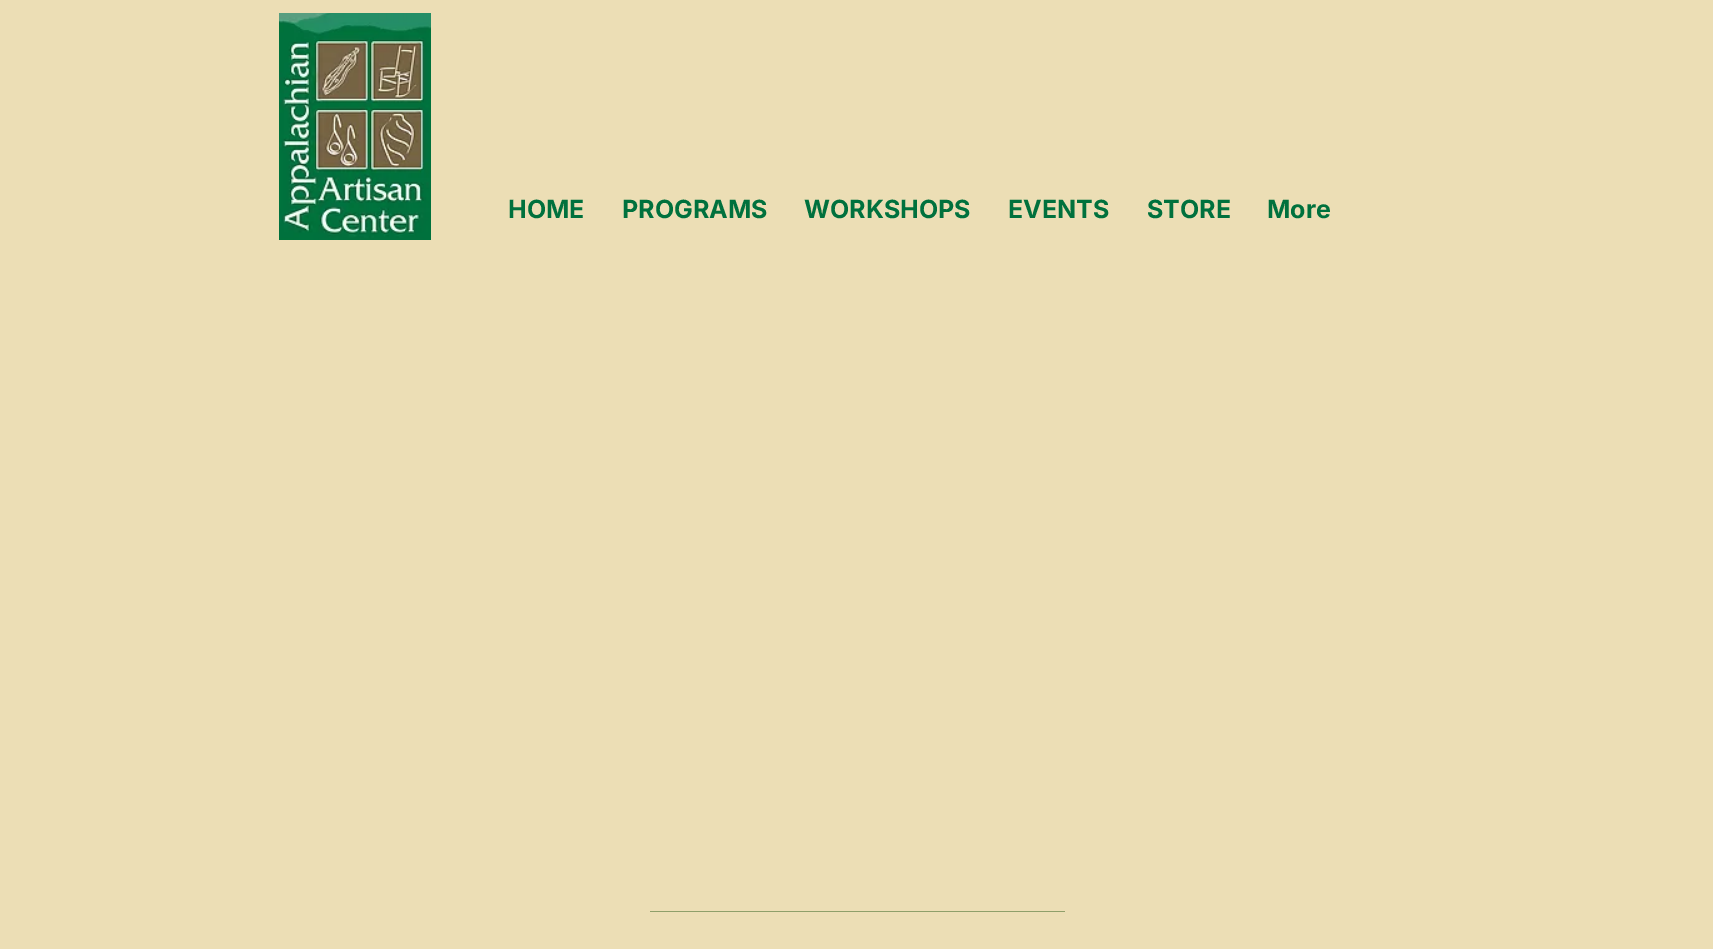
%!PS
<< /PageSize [1713 949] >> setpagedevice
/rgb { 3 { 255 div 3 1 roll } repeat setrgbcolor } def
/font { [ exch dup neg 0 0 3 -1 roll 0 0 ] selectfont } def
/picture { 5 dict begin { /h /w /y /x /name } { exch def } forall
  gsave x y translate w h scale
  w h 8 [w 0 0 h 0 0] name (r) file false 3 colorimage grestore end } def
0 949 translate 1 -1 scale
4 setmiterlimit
236 222 181 rgb
0 0 1713 949 rectfill
(img/1.rgb) 279 13 152 227 picture
143 159 106 rgb
650 911 415 1 rectfill
/Inter-Bold 25 font
0 113 61 rgb
[
  [(HOME) 508 218]
  [(PROGRAMS) 622 218]
  [(WORKSHOPS) 804 218]
  [(EVENTS) 1008 218]
  [(STORE) 1147 218]
  [(More) 1267 218]
] { aload pop moveto show } forall
showpage
